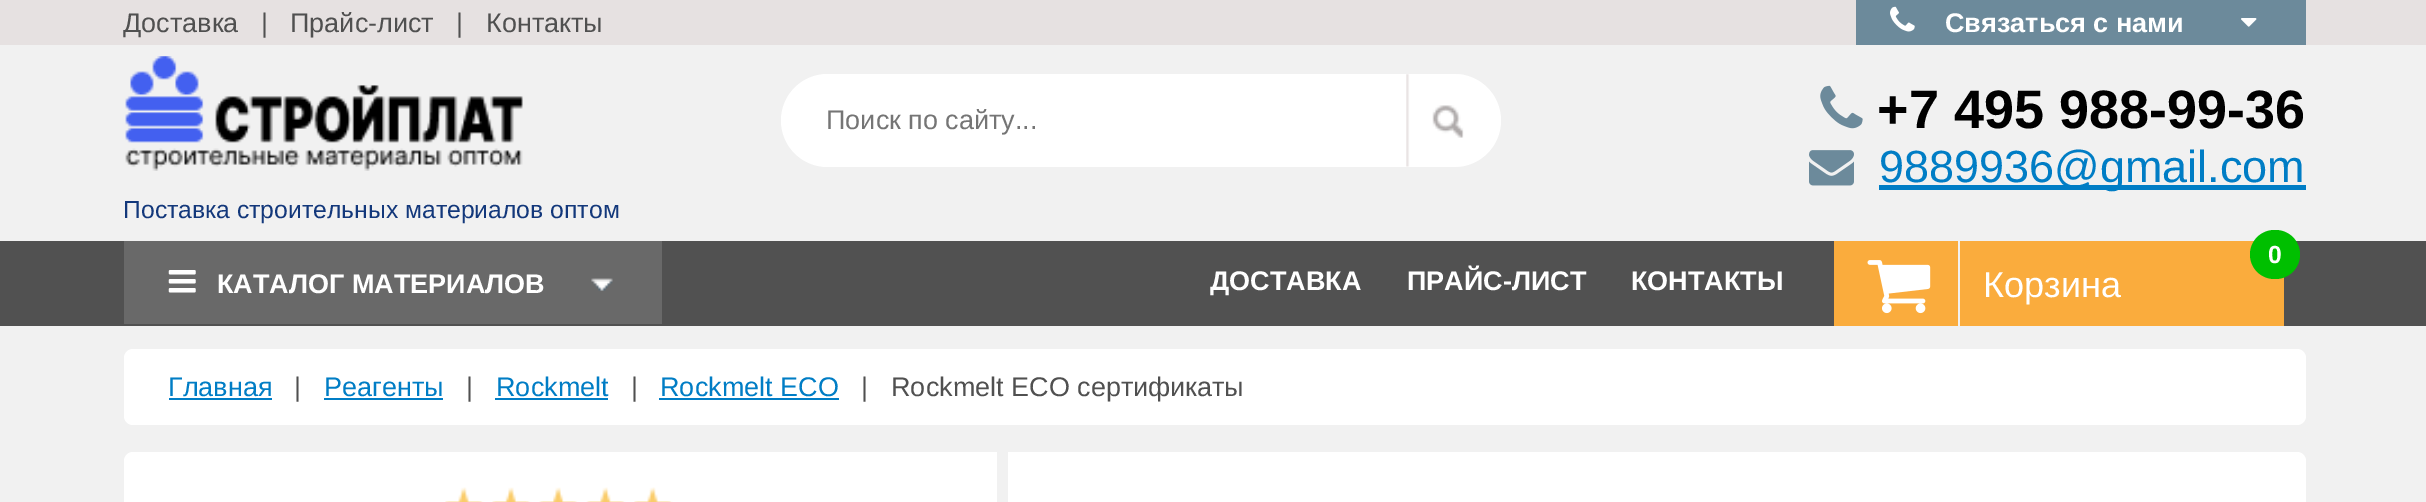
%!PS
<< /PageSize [2426 502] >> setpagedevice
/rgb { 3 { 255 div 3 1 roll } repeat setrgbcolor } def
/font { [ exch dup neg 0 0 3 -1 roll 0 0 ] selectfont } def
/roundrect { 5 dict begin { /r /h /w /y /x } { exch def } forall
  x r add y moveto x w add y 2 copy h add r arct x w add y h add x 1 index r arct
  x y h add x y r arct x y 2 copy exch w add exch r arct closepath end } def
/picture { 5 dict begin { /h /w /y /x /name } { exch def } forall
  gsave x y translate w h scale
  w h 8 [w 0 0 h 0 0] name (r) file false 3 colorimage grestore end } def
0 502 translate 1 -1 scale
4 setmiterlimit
241 241 241 rgb
0 0 2426 502 rectfill
230 225 225 rgb
0 0 2426 45 rectfill
108 138 155 rgb
1856 0 450 45 rectfill
(img/1.rgb) 1890 6 25 26 picture
(img/2.rgb) 2241 18 16 9 picture
255 255 255 rgb
781 74 720 93 46.5 roundrect fill
(img/3.rgb) 1406 74 58 93 picture
(img/4.rgb) 1820 85 43 44 picture
(img/5.rgb) 1809 150 45 36 picture
0 125 197 rgb
1879 185 427 5 rectfill
(img/6.rgb) 125 56 398 115 picture
81 81 81 rgb
0 241 2426 85 rectfill
105 105 105 rgb
124 241 538 83 rectfill
(img/7.rgb) 168 270 28 23 picture
(img/8.rgb) 591 278 22 13 picture
250 172 61 rgb
1834 241 450 85 rectfill
0 191 0 rgb
2250 230 50 49 24.5 roundrect fill
(img/9.rgb) 1867 260 64 54 picture
241 241 241 rgb
1958 241 2 85 rectfill
255 255 255 rgb
124 349 2182 76 9 roundrect fill
[
  [169 398 103 2 0 125 197]
  [324 398 119 2 0 125 197]
  [495 398 113 2 0 125 197]
  [659 398 180 2 0 125 197]
] { aload pop rgb rectfill } forall
255 255 255 rgb
124 452 2182 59 9 roundrect fill
241 241 241 rgb
997 452 11 50 rectfill
(img/10.rgb) 445 487 228 15 picture
/LiberationSans-Regular 27 font
80 80 80 rgb
[
  [(Доставка) 123 32]
  [(|) 261 32]
  [(Прайс-лист) 290 32]
  [(|) 456 32]
  [(Контакты) 486 32]
] { aload pop moveto show } forall
/LiberationSans-Bold 27 font
255 255 255 rgb
1945 32 moveto (Связаться с нами) show
/LiberationSans-Regular 27 font
117 117 117 rgb
826 129 moveto (Поиск по сайту...) show
/LiberationSans-Bold 54 font
0 0 0 rgb
1877 128 moveto (+7 495 988-99-36) show
/LiberationSans-Regular 45 font
0 125 197 rgb
1879 182 moveto (9889936@gmail.com) show
/LiberationSans-Regular 24.75 font
19 56 123 rgb
123 218 moveto (Поставка строительных материалов оптом) show
/LiberationSans-Bold 27 font
255 255 255 rgb
[
  [(КАТАЛОГ МАТЕРИАЛОВ) 217 293]
  [(ДОСТАВКА) 1210 290]
  [(ПРАЙС-ЛИСТ) 1407 290]
  [(КОНТАКТЫ) 1631 290]
] { aload pop moveto show } forall
/LiberationSans-Bold 24.75 font
2268 263 moveto (0) show
/LiberationSans-Regular 36 font
1983 297 moveto (Корзина) show
/LiberationSans-Regular 27 font
0 125 197 rgb
168 396 moveto (Главная) show
80 80 80 rgb
294 396 moveto (|) show
0 125 197 rgb
324 396 moveto (Реагенты) show
80 80 80 rgb
466 396 moveto (|) show
0 125 197 rgb
496 396 moveto (Rockmelt) show
80 80 80 rgb
631 396 moveto (|) show
0 125 197 rgb
660 396 moveto (Rockmelt ECO) show
80 80 80 rgb
861 396 moveto (|) show
891 396 moveto (Rockmelt ECO сертификаты) show
showpage
